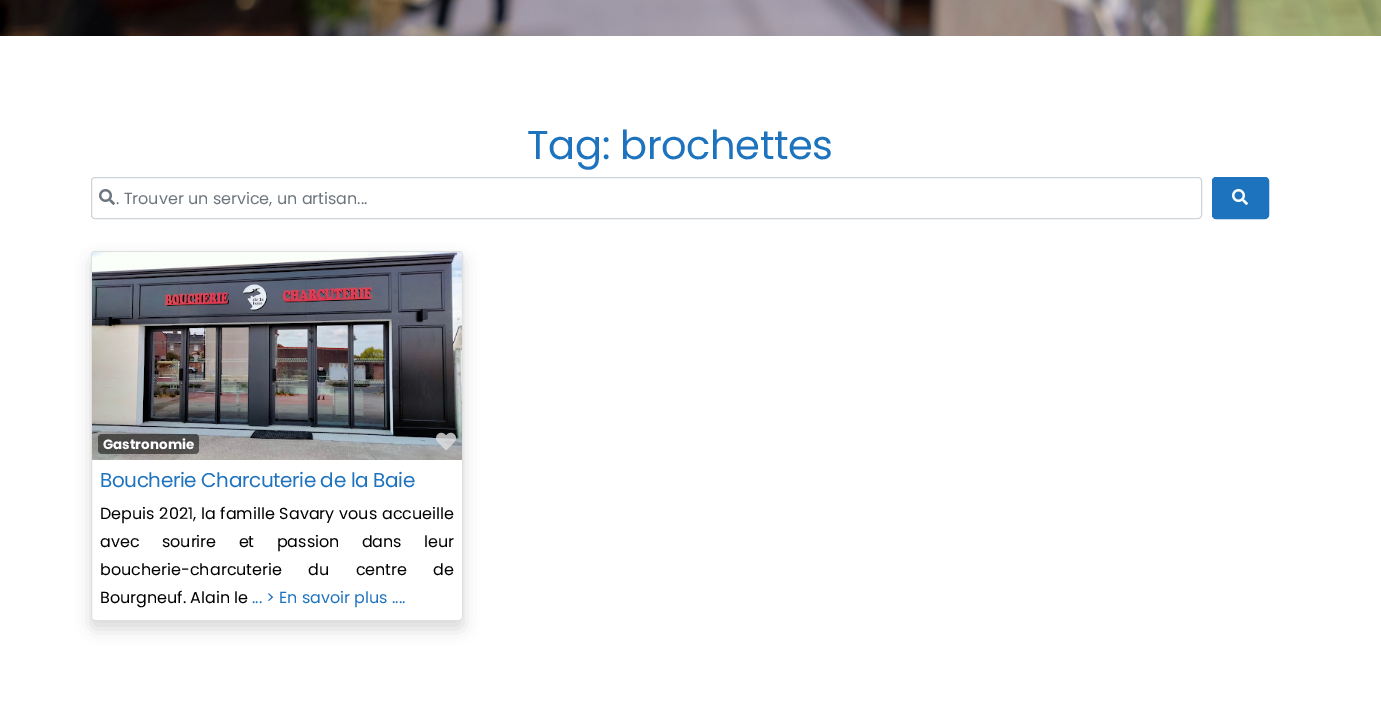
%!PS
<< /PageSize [1381 704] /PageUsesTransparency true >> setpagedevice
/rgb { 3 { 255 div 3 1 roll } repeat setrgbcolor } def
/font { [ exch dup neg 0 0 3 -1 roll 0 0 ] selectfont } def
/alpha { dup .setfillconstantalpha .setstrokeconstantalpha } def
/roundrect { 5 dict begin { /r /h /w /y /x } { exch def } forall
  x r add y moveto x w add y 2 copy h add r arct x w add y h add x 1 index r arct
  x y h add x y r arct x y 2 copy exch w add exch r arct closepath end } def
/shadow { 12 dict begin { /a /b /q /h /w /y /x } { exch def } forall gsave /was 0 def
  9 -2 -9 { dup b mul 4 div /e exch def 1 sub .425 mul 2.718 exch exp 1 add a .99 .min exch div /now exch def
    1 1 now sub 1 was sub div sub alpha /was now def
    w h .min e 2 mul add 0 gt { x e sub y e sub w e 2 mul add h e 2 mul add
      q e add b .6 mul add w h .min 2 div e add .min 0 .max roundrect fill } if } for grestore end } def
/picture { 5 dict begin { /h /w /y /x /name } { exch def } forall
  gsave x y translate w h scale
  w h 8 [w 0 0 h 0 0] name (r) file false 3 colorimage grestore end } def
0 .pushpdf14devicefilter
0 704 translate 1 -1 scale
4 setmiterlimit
255 255 255 rgb
0 0 1381 704 rectfill
(img/1.rgb) 0 0 1381 36 picture
206 212 218 rgb
91.5 177.5 1110 41 3.5 roundrect stroke
(img/2.rgb) 99 189 16 16 picture
30 115 190 rgb
1212.5 177.5 56 41 3.5 roundrect gsave fill grestore
stroke
(img/3.rgb) 1232 189 16 16 picture
0 0 0 rgb
91 259 372 370 4 8 0.15 shadow
255 255 255 rgb
91.5 251.5 371 369 3.5 roundrect gsave fill grestore
223 223 223 rgb
stroke
(img/4.rgb) 92 252 370 208 picture
0.5 alpha
0 0 0 rgb
98 434 101 20 4 roundrect fill
1 alpha
(img/5.rgb) 436 432 20 19 picture
/Poppins-Regular 40 font
30 115 190 rgb
527 159 moveto -0.4 0 (Tag: brochettes) ashow
/Poppins-Regular 16 font
108 117 125 rgb
116 204 moveto (. Trouver un service, un artisan...) show
/Poppins-Bold 13.5 font
255 255 255 rgb
103 449 moveto (Gastronomie) show
/Poppins-Regular 20 font
30 115 190 rgb
100 487 moveto -0.4 0 (Boucherie Charcuterie de la Baie) ashow
/Poppins-Regular 16 font
0 0 0 rgb
100 519 moveto 0.5 0 32 (Depuis 2021, la famille Savary vous accueille) widthshow
100 547 moveto 18 0 32 (avec sourire et passion dans leur) widthshow
100 575 moveto 22 0 32 (boucherie-charcuterie du centre de) widthshow
100 603 moveto (Bourgneuf. Alain le) show
30 115 190 rgb
252 603 moveto (... > En savoir plus ....) show
.poppdf14devicefilter showpage
